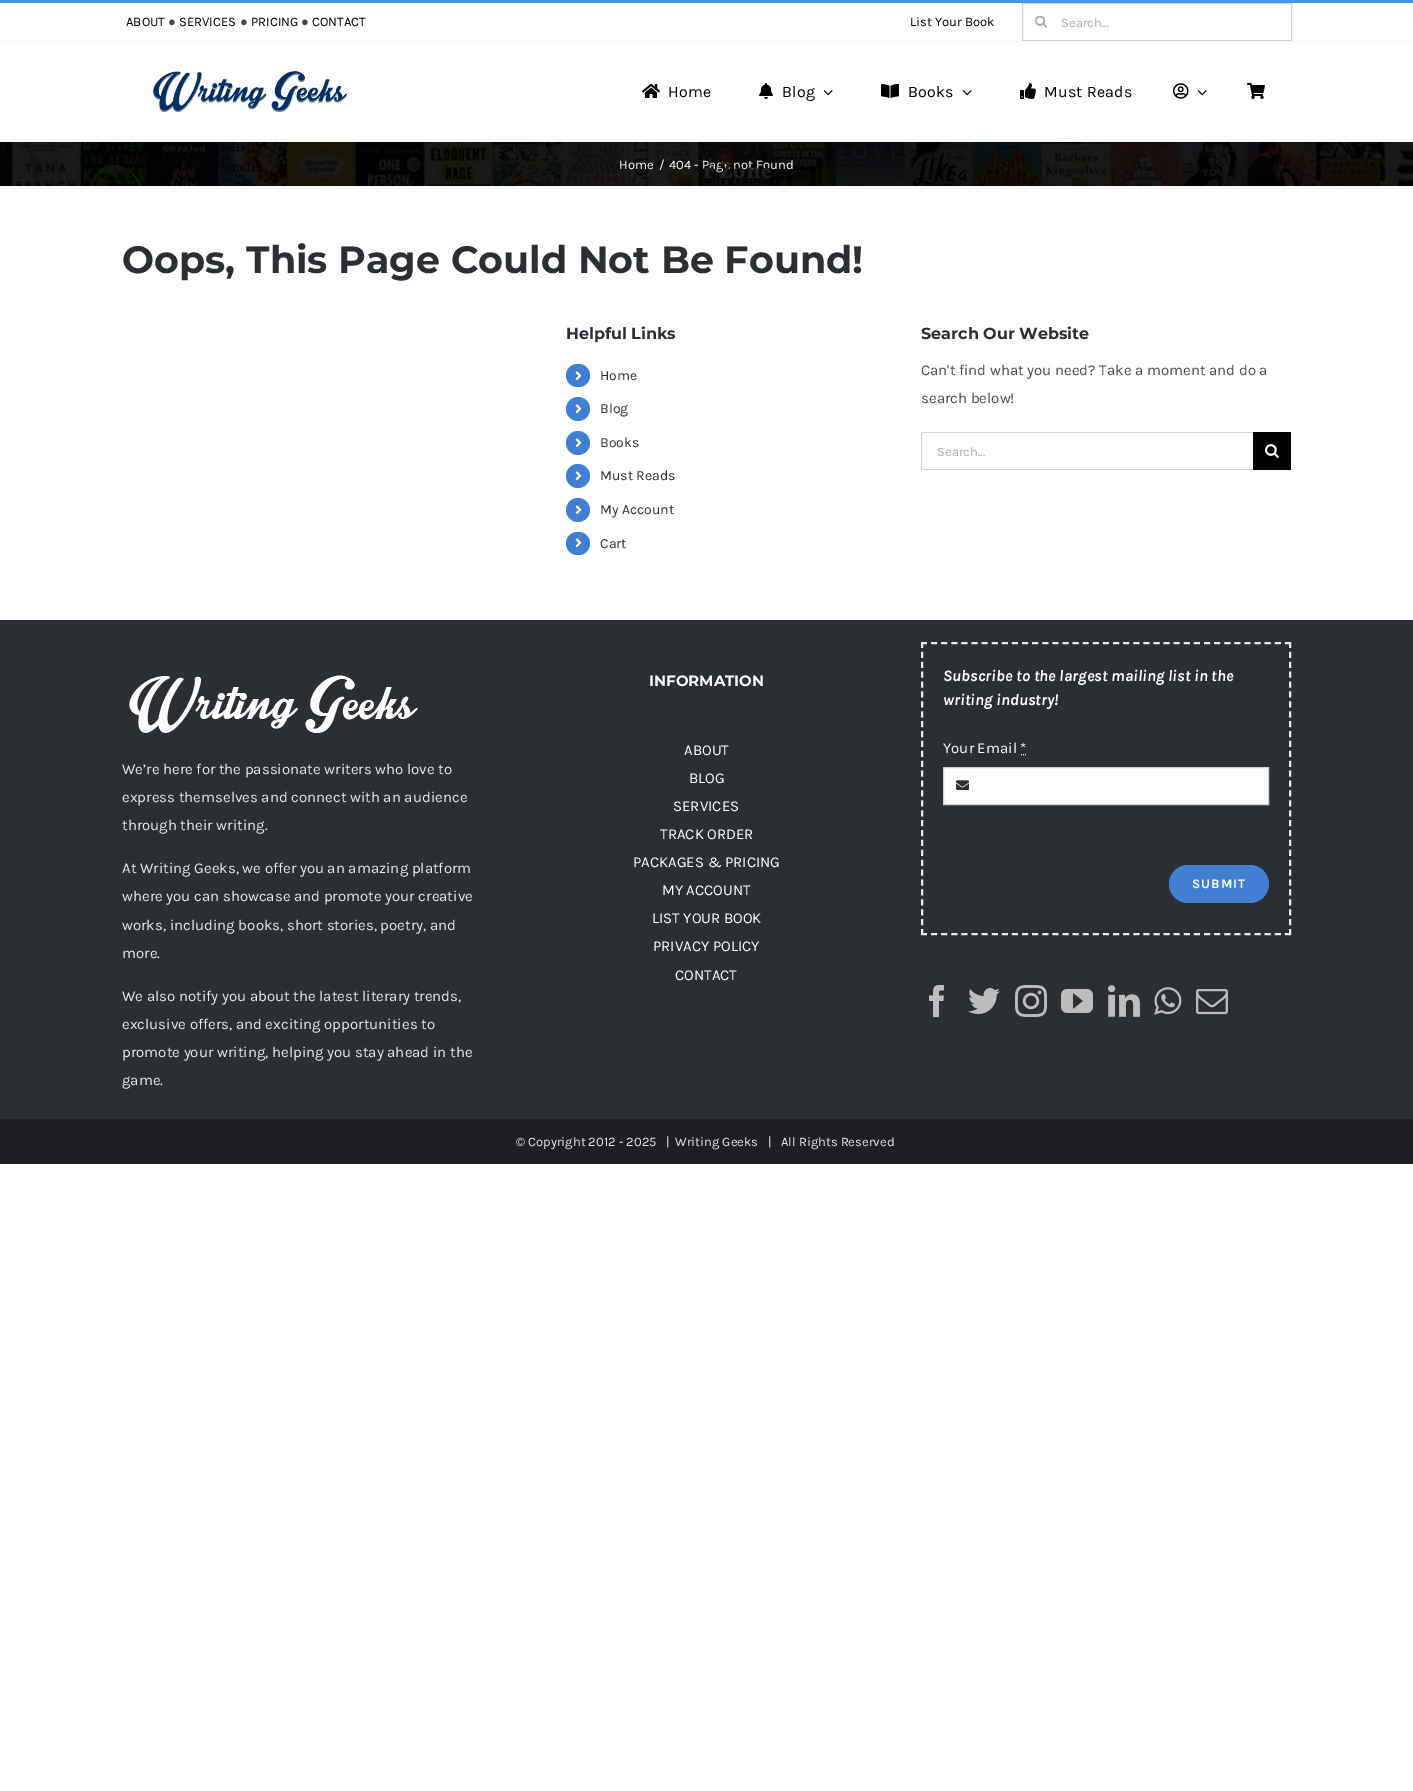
%!PS
<< /PageSize [1413 1791] >> setpagedevice
/rgb { 3 { 255 div 3 1 roll } repeat setrgbcolor } def
/font { [ exch dup neg 0 0 3 -1 roll 0 0 ] selectfont } def
/circle { newpath 0 360 arc closepath } def
/roundrect { 5 dict begin { /r /h /w /y /x } { exch def } forall
  x r add y moveto x w add y 2 copy h add r arct x w add y h add x 1 index r arct
  x y h add x y r arct x y 2 copy exch w add exch r arct closepath end } def
/picture { 5 dict begin { /h /w /y /x /name } { exch def } forall
  gsave x y translate w h scale
  w h 8 [w 0 0 h 0 0] name (r) file false 3 colorimage grestore end } def
0 1791 translate 1 -1 scale
4 setmiterlimit
255 255 255 rgb
0 0 1413 1791 rectfill
71 148 237 rgb
0 0 1413 3 rectfill
210 210 210 rgb
1022.5 3.5 269 37 rectstroke
(img/1.rgb) 1035 15 12 13 picture
241 246 249 rgb
0 41 1413 1 rectfill
(img/2.rgb) 153 71 195 42 picture
(img/3.rgb) 642 84 18 14 picture
(img/4.rgb) 759 83 14 16 picture
(img/5.rgb) 823 90 10 6 picture
(img/6.rgb) 881 84 18 14 picture
(img/5.rgb) 962 90 10 6 picture
(img/7.rgb) 1020 83 16 16 picture
(img/8.rgb) 1173 83 16 16 picture
(img/5.rgb) 1197 90 10 6 picture
(img/9.rgb) 1247 83 18 16 picture
(img/10.rgb) 0 142 1413 44 picture
66 126 209 rgb
566 364 24 23 11.5 roundrect fill
(img/11.rgb) 575 371 7 10 picture
578 409 12 circle fill
(img/11.rgb) 575 404 7 10 picture
578 443 12 circle fill
(img/11.rgb) 575 438 7 10 picture
578 476 12 circle fill
(img/11.rgb) 575 471 7 10 picture
578 510 12 circle fill
(img/11.rgb) 575 505 7 10 picture
566 532 24 23 11.5 roundrect fill
(img/11.rgb) 575 538 7 10 picture
[
  [921 432 332 1 210 210 210]
  [921 469 332 1 210 210 210]
  [921 432 1 38 210 210 210]
  [1253 432 38 38 0 0 0]
] { aload pop rgb rectfill } forall
(img/12.rgb) 1265 444 14 14 picture
43 46 50 rgb
0 620 1413 499 rectfill
(img/13.rgb) 129 675 289 58 picture
234 233 233 rgb
2 setlinewidth
[6 4.11] 0 setdash
921 643 moveto 1291 643 lineto stroke
[6 3.9] 0 setdash
1290 642 moveto 1290 935 lineto stroke
[6 4.11] 0 setdash
921 934 moveto 1291 934 lineto stroke
[6 3.9] 0 setdash
922 642 moveto 922 935 lineto stroke
255 255 255 rgb
1 setlinewidth
[] 0 setdash
1021 754.5 moveto 1022 754.5 lineto 1023 754.5 moveto 1024 754.5 lineto 1025 754.5 moveto 1026 754.5 lineto 1027 754.5 moveto 1027 754.5 lineto stroke
943.5 767.5 moveto 1268.5 767.5 lineto 1268.5 804.5 lineto 943.5 804.5 lineto closepath gsave fill grestore
210 210 210 rgb
stroke
(img/14.rgb) 956 780 13 10 picture
66 126 209 rgb
1169 865 100 38 19 roundrect fill
(img/15.rgb) 929 985 15 32 picture
(img/16.rgb) 968 988 32 26 picture
(img/17.rgb) 1015 985 32 32 picture
(img/18.rgb) 1061 989 32 24 picture
(img/19.rgb) 1108 985 32 32 picture
(img/20.rgb) 1154 987 28 28 picture
(img/21.rgb) 1196 989 32 26 picture
29 31 34 rgb
0 1119 1413 45 rectfill
/Karla-Regular 13 font
0 0 0 rgb
126 26 moveto (ABOUT) show
/LiberationSans-Regular 13 font
73 73 73 rgb
168 26 moveto (●) show
/Karla-Regular 13 font
0 0 0 rgb
179 26 moveto (SERVICES) show
/LiberationSans-Regular 13 font
73 73 73 rgb
240 26 moveto (●) show
/Karla-Regular 13 font
0 0 0 rgb
251 26 moveto (PRICING) show
/LiberationSans-Regular 13 font
73 73 73 rgb
301 26 moveto (●) show
/Karla-Regular 13 font
0 0 0 rgb
312 26 moveto (CONTACT) show
910 26 moveto (List Your Book) show
170 169 169 rgb
1061 27 moveto (Search...) show
/Karla-Regular 16 font
0 0 0 rgb
668 97 moveto 0.25 0 (Home) ashow
782 97 moveto 0.25 0 (Blog) ashow
908 97 moveto 0.25 0 (Books) ashow
1044 97 moveto 0.25 0 (Must Reads) ashow
/Karla-Regular 13 font
255 255 255 rgb
[
  [(Home) 619 169]
  [(/) 659 169]
  [(404 - Page not Found) 669 169]
] { aload pop moveto show } forall
/Alkalami-Regular 24 font
33 33 31 rgb
703 178 moveto (r Zone) show
/Montserrat-Bold 38 font
43 46 50 rgb
122 273 moveto (Oops, This Page Could Not Be Found!) show
/Montserrat-Bold 16 font
566 339 moveto (Helpful Links) show
/Karla-Regular 14 font
[
  [(Home) 600 380]
  [(Blog) 600 413]
  [(Books) 600 447]
  [(Must Reads) 600 480]
  [(My Account) 600 514]
  [(Cart) 600 548]
] { aload pop moveto show } forall
/Montserrat-Bold 16 font
921 339 moveto (Search Our Website) show
/Karla-Regular 15 font
73 73 73 rgb
921 375 moveto (Can't find what you need? Take a moment and do a) show
921 403 moveto (search below!) show
/Karla-Regular 13 font
170 169 169 rgb
937 456 moveto (Search...) show
/Karla-Regular 15 font
234 234 234 rgb
[
  [(We’re here for the passionate writers who love to) 122 774]
  [(express themselves and connect with an audience) 122 802]
  [(through their writing.) 122 830]
  [(At Writing Geeks, we offer you an amazing platform) 122 873]
  [(where you can showcase and promote your creative) 122 901]
  [(works, including books, short stories, poetry, and) 122 930]
  [(more.) 122 958]
  [(We also notify you about the latest literary trends,) 122 1001]
  [(exclusive offers, and exciting opportunities to) 122 1029]
  [(promote your writing, helping you stay ahead in the) 122 1057]
  [(game.) 122 1085]
] { aload pop moveto show } forall
/Montserrat-Bold 15 font
255 255 255 rgb
649 686 moveto (INFORMATION) show
/Karla-Regular 15 font
[
  [(ABOUT) 684 755]
  [(BLOG) 689 783]
  [(SERVICES) 673 811]
  [(TRACK ORDER) 660 839]
  [(PACKAGES & PRICING) 633 867]
  [(MY ACCOUNT) 662 895]
  [(LIST YOUR BOOK) 652 923]
  [(PRIVACY POLICY) 653 951]
  [(CONTACT) 675 980]
] { aload pop moveto show } forall
/Karla-BoldItalic 16 font
943 681 moveto (Subscribe to the largest mailing list in the) show
943 705 moveto (writing industry!) show
/Karla-Regular 15 font
943 753 moveto (Your Email *) show
/Karla-Bold 13 font
1192 888 moveto 1 0 (SUBMIT) ashow
/Karla-Regular 13 font
234 234 234 rgb
[
  [(© Copyright 2012 - 2025   |) 516 1146]
  [(Writing Geeks) 675 1146]
  [(|   All Rights Reserved) 768 1146]
] { aload pop moveto show } forall
showpage
